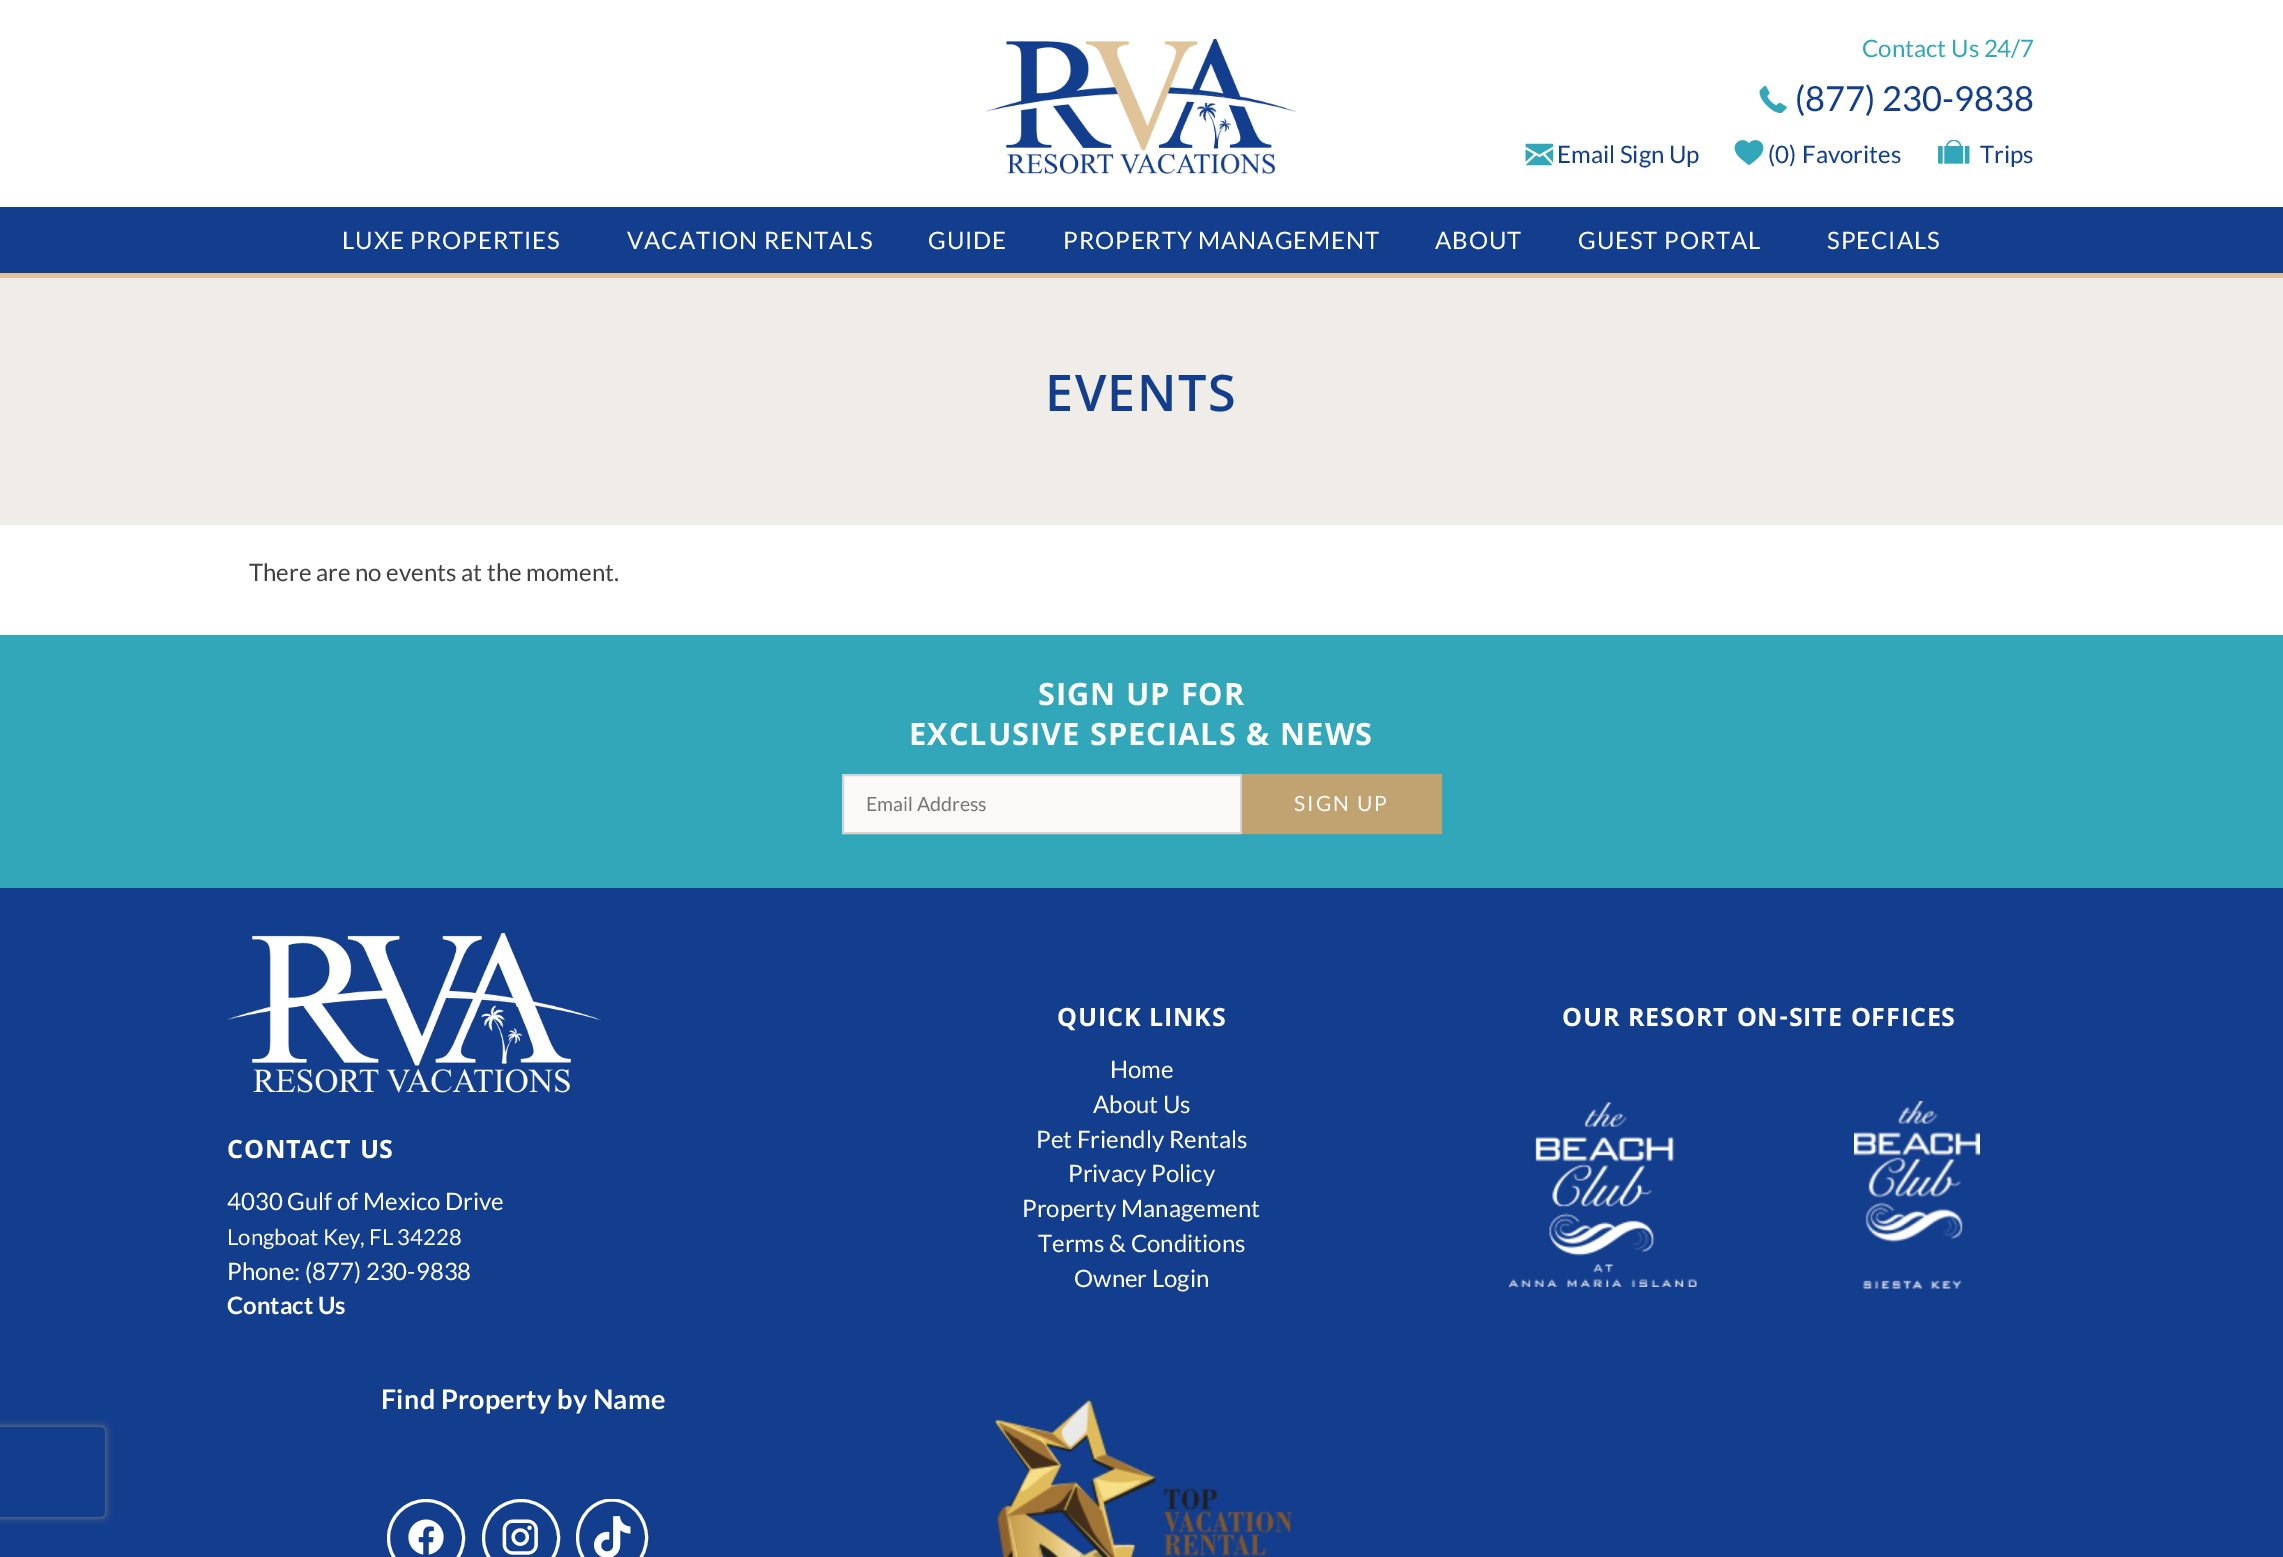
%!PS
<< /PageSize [2283 1557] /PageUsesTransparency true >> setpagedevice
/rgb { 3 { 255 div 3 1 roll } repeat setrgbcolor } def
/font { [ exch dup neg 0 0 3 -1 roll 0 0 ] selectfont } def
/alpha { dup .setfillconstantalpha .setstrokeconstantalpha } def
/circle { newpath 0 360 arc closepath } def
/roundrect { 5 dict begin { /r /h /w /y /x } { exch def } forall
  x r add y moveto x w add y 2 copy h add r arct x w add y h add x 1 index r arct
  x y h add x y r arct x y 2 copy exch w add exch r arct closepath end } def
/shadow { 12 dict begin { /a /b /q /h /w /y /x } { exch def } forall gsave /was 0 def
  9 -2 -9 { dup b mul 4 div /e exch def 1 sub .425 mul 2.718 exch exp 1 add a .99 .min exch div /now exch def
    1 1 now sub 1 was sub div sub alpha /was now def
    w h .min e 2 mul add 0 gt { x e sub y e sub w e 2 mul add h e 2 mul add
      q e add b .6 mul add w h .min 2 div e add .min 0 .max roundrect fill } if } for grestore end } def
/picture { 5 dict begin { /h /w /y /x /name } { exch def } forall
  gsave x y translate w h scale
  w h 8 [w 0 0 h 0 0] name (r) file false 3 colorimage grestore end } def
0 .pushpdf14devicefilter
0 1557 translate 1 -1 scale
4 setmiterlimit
255 255 255 rgb
0 0 2283 1557 rectfill
(img/1.rgb) 985 39 312 135 picture
(img/2.rgb) 1759 85 28 28 picture
(img/3.rgb) 1525 143 29 23 picture
(img/4.rgb) 1734 140 30 25 picture
(img/5.rgb) 1938 140 32 24 picture
[
  [0 207 2283 66 19 61 141]
  [0 273 2283 5 224 195 152]
  [0 278 2283 247 240 237 232]
  [0 635 2283 253 50 167 185]
] { aload pop rgb rectfill } forall
250 249 247 rgb
843 775 moveto 1241 775 lineto 1241 833 lineto 843 833 lineto closepath gsave fill grestore
213 212 210 rgb
2 setlinewidth
stroke
193 162 113 rgb
1242 774 200 60 rectfill
19 61 141 rgb
0 888 2283 669 rectfill
gsave
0 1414 moveto 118 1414 lineto 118 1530 lineto 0 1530 lineto closepath -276 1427 moveto 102 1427 lineto 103.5 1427 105 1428.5 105 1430 curveto 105 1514 lineto 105 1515.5 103.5 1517 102 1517 curveto -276 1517 lineto -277.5 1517 -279 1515.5 -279 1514 curveto -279 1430 lineto -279 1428.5 -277.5 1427 -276 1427 curveto closepath eoclip newpath
128 128 128 rgb
-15 1427 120 90 3 4 1 shadow
grestore
(img/6.rgb) 227 933 374 160 picture
(img/7.rgb) 1509 1102 188 185 picture
(img/8.rgb) 1854 1101 126 188 picture
(img/9.rgb) 994 1399 299 158 picture
255 255 255 rgb
3 setlinewidth
426 1538 37.5 circle stroke
(img/10.rgb) 408 1519 36 36 picture
521 1538 37.5 circle stroke
(img/11.rgb) 502 1519 36 36 picture
gsave
227 1499 594 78 rectclip
612 1500 moveto 631 1500 646.5 1517 646.5 1537.5 curveto 646.5 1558 631 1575 612 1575 curveto 593 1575 577.5 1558 577.5 1537.5 curveto 577.5 1517 593 1500 612 1500 curveto closepath stroke
grestore
(img/12.rgb) 594 1516 37 41 picture
/Lato-Regular 24 font
50 167 185 rgb
1862 57 moveto (Contact Us 24/7) show
/Lato-Regular 34.5 font
19 61 141 rgb
1795 111 moveto (\(877\) 230-9838) show
/Lato-Regular 24 font
[
  [(Email Sign Up) 1557 163]
  [(\(0\)) 1768 163]
  [(Favorites) 1802 163]
  [(Trips) 1980 163]
] { aload pop moveto show } forall
255 255 255 rgb
342 249 moveto 0.9 0 (LUXE PROPERTIES) ashow
627 249 moveto 0.9 0 (VACATION RENTALS) ashow
928 249 moveto 0.9 0 (GUIDE) ashow
1063 249 moveto 0.9 0 (PROPERTY MANAGEMENT) ashow
1435 249 moveto 0.9 0 (ABOUT) ashow
1578 249 moveto 0.9 0 (GUEST PORTAL) ashow
1827 249 moveto 0.9 0 (SPECIALS) ashow
/Khula-SemiBold 54 font
19 61 141 rgb
1045 411 moveto 1.5 0 (EVENTS) ashow
/Lato-Regular 24 font
65 65 65 rgb
249 581 moveto (There are no events at the moment.) show
/Khula-Bold 33 font
255 255 255 rgb
1038 705 moveto 1 0 (SIGN UP FOR) ashow
909 745 moveto 1 0 (EXCLUSIVE SPECIALS & NEWS) ashow
/Lato-Regular 19.5 font
117 117 117 rgb
866 811 moveto (Email Address) show
/Lato-Regular 21 font
255 255 255 rgb
1294 811 moveto 2 0 (SIGN UP) ashow
/Khula-Bold 27 font
1057 1026 moveto 0.8 0 (QUICK LINKS) ashow
/Lato-Regular 24 font
[
  [(Home) 1110 1078]
  [(About Us) 1093 1113]
  [(Pet Friendly Rentals) 1036 1148]
  [(Privacy Policy) 1068 1182]
  [(Property Management) 1022 1217]
  [(Terms & Conditions) 1038 1252]
  [(Owner Login) 1074 1287]
] { aload pop moveto show } forall
/Khula-Bold 27 font
1562 1026 moveto 0.8 0 (OUR RESORT ON-SITE OFFICES) ashow
227 1158 moveto 0.8 0 (CONTACT US) ashow
/Lato-Regular 24 font
227 1210 moveto (4030 Gulf of Mexico Drive) show
/Lato-Regular 22.1 font
227 1245 moveto (Longboat Key, FL 34228) show
/Lato-Regular 24 font
227 1280 moveto (Phone: \(877\) 230-9838) show
/Lato-Bold 24 font
227 1314 moveto (Contact Us) show
/Lato-Bold 27 font
381 1409 moveto 0.25 0 (Find Property by Name) ashow
.poppdf14devicefilter showpage
